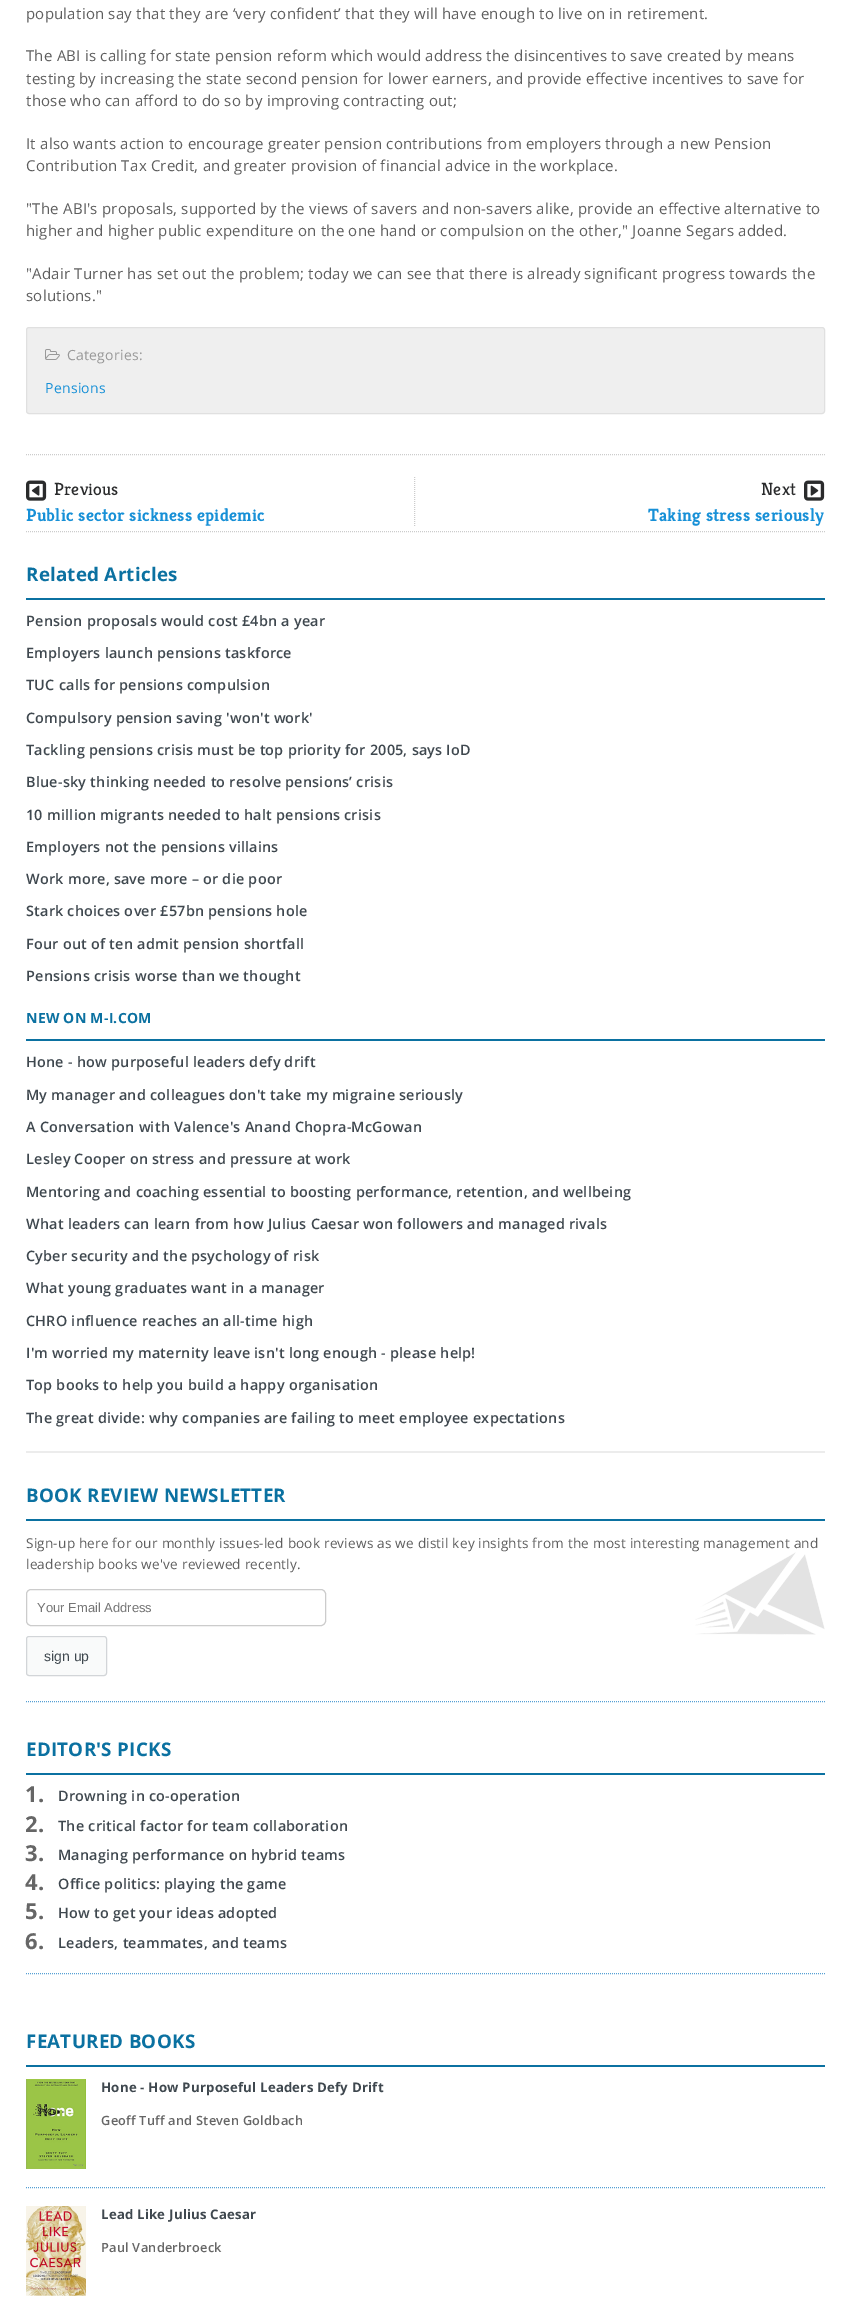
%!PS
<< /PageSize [850 2305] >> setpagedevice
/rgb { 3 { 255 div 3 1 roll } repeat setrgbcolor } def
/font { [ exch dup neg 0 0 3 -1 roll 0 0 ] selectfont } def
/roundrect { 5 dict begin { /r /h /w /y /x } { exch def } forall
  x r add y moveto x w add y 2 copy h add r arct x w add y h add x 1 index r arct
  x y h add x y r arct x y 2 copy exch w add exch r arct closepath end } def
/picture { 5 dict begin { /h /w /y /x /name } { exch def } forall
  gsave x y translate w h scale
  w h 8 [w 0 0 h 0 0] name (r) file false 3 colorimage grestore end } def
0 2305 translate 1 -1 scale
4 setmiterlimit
255 255 255 rgb
0 0 850 2305 rectfill
239 239 239 rgb
26.5 327.5 798 86 2.5 roundrect gsave fill grestore
224 224 224 rgb
stroke
(img/1.rgb) 45 349 15 11 picture
204 204 204 rgb
[1 1] 0 setdash
26 454.5 moveto 825 454.5 lineto stroke
26 531.5 moveto 825 531.5 lineto stroke
414.5 477 moveto 414.5 527 lineto stroke
(img/2.rgb) 26 480 21 21 picture
(img/3.rgb) 804 480 21 21 picture
[
  [26 598 799 2 11 113 161]
  [26 1039 799 2 11 113 161]
  [26 1451 799 2 236 236 236]
  [26 1519 799 2 11 113 161]
] { aload pop rgb rectfill } forall
(img/4.rgb) 695 1552 130 83 picture
86 160 212 rgb
26 1701.5 moveto 825 1701.5 lineto stroke
204 204 204 rgb
[] 0 setdash
26.5 1589.5 299 36 4.5 roundrect stroke
249 250 250 rgb
26 1636 81 40 3 roundrect fill
255 255 255 rgb
29 1638 moveto 104 1638 lineto 105 1638 106 1639 106 1640 curveto 106 1634 95 1637 92 1637 curveto 42 1637 lineto 38 1637 27 1634 27 1640 curveto 27 1639 28 1638 29 1638 curveto closepath fill
210 213 216 rgb
26.5 1636.5 80 39 2.5 roundrect stroke
86 160 212 rgb
[1 1] 0 setdash
26 1973.5 moveto 825 1973.5 lineto stroke
11 113 161 rgb
26 1773 799 2 rectfill
26 2065 799 2 rectfill
86 160 212 rgb
26 2187.5 moveto 825 2187.5 lineto stroke
(img/5.rgb) 26 2079 60 90 picture
(img/6.rgb) 26 2206 60 90 picture
/OpenSans-Regular 15 font
94 94 94 rgb
26 19 moveto 0.23 0 (population say that they are ‘very confident’ that they will have enough to live on in retirement.) ashow
26 61 moveto 0.23 0 (The ABI is calling for state pension reform which would address the disincentives to save created by means) ashow
26 84 moveto 0.23 0 (testing by increasing the state second pension for lower earners, and provide effective incentives to save for) ashow
26 106 moveto 0.23 0 (those who can afford to do so by improving contracting out;) ashow
26 149 moveto 0.23 0 (It also wants action to encourage greater pension contributions from employers through a new Pension) ashow
26 171 moveto 0.23 0 (Contribution Tax Credit, and greater provision of financial advice in the workplace.) ashow
26 214 moveto 0.23 0 ("The ABI's proposals, supported by the views of savers and non-savers alike, provide an effective alternative to) ashow
26 236 moveto 0.23 0 (higher and higher public expenditure on the one hand or compulsion on the other," Joanne Segars added.) ashow
26 279 moveto 0.23 0 ("Adair Turner has set out the problem; today we can see that there is already significant progress towards the) ashow
26 301 moveto 0.23 0 (solutions.") ashow
/OpenSans-Regular 14 font
153 153 153 rgb
67 360 moveto 0.25 0 (Categories:) ashow
23 144 215 rgb
45 393 moveto 0.25 0 (Pensions) ashow
/Kreon-Regular 17.6 font
42 43 44 rgb
54 495 moveto 0.25 0 (Previous) ashow
/Kreon-Bold 17.6 font
23 144 215 rgb
26 521 moveto 0.25 0 (Public sector sickness epidemic) ashow
/Kreon-Regular 17.6 font
42 43 44 rgb
761 495 moveto 0.25 0 (Next) ashow
/Kreon-Bold 17.6 font
23 144 215 rgb
648 521 moveto 0.25 0 (Taking stress seriously) ashow
/OpenSans-Bold 18.75 font
11 113 161 rgb
26 581 moveto 0.25 0 (Related Articles) ashow
/OpenSans-SemiBold 14.4 font
63 72 79 rgb
26 626 moveto 0.22 0 (Pension proposals would cost £4bn a year) ashow
26 658 moveto 0.22 0 (Employers launch pensions taskforce) ashow
26 690 moveto 0.22 0 (TUC calls for pensions compulsion) ashow
26 723 moveto 0.22 0 (Compulsory pension saving 'won't work') ashow
26 755 moveto 0.22 0 (Tackling pensions crisis must be top priority for 2005, says IoD) ashow
26 787 moveto 0.22 0 (Blue-sky thinking needed to resolve pensions’ crisis) ashow
26 820 moveto 0.22 0 (10 million migrants needed to halt pensions crisis) ashow
26 852 moveto 0.22 0 (Employers not the pensions villains) ashow
26 884 moveto 0.22 0 (Work more, save more – or die poor) ashow
26 916 moveto 0.22 0 (Stark choices over £57bn pensions hole) ashow
26 949 moveto 0.22 0 (Four out of ten admit pension shortfall) ashow
26 981 moveto 0.22 0 (Pensions crisis worse than we thought) ashow
/OpenSans-Bold 14 font
11 113 161 rgb
26 1023 moveto 0.25 0 (NEW ON M-I.COM) ashow
/OpenSans-SemiBold 14.4 font
63 72 79 rgb
26 1067 moveto 0.22 0 (Hone - how purposeful leaders defy drift) ashow
26 1100 moveto 0.22 0 (My manager and colleagues don't take my migraine seriously) ashow
26 1132 moveto 0.22 0 (A Conversation with Valence's Anand Chopra-McGowan) ashow
26 1164 moveto 0.22 0 (Lesley Cooper on stress and pressure at work) ashow
26 1197 moveto 0.22 0 (Mentoring and coaching essential to boosting performance, retention, and wellbeing) ashow
26 1229 moveto 0.22 0 (What leaders can learn from how Julius Caesar won followers and managed rivals) ashow
26 1261 moveto 0.22 0 (Cyber security and the psychology of risk) ashow
26 1293 moveto 0.22 0 (What young graduates want in a manager) ashow
26 1326 moveto 0.22 0 (CHRO influence reaches an all-time high) ashow
26 1358 moveto 0.22 0 (I'm worried my maternity leave isn't long enough - please help!) ashow
26 1390 moveto 0.22 0 (Top books to help you build a happy organisation) ashow
26 1423 moveto 0.22 0 (The great divide: why companies are failing to meet employee expectations) ashow
/OpenSans-Bold 18.75 font
11 113 161 rgb
26 1502 moveto 0.25 0 (BOOK REVIEW NEWSLETTER) ashow
/OpenSans-Regular 13.6 font
94 94 94 rgb
26 1548 moveto 0.2 0 (Sign-up here for our monthly issues-led book reviews as we distil key insights from the most interesting management and) ashow
26 1569 moveto 0.2 0 (leadership books we've reviewed recently.) ashow
/LiberationSans-Regular 13 font
117 117 117 rgb
37 1612 moveto (Your Email Address) show
/LiberationSans-Regular 14 font
63 72 79 rgb
44 1661 moveto (sign up) show
/OpenSans-Bold 18.75 font
11 113 161 rgb
26 1756 moveto 0.25 0 (EDITOR'S PICKS) ashow
/OpenSans-Bold 22 font
102 102 102 rgb
25 1802 moveto 0.25 0 (1.) ashow
/OpenSans-SemiBold 14.4 font
63 72 79 rgb
58 1801 moveto 0.22 0 (Drowning in co-operation) ashow
/OpenSans-Bold 22 font
102 102 102 rgb
25 1832 moveto 0.25 0 (2.) ashow
/OpenSans-SemiBold 14.4 font
63 72 79 rgb
58 1831 moveto 0.22 0 (The critical factor for team collaboration) ashow
/OpenSans-Bold 22 font
102 102 102 rgb
25 1861 moveto 0.25 0 (3.) ashow
/OpenSans-SemiBold 14.4 font
63 72 79 rgb
58 1860 moveto 0.22 0 (Managing performance on hybrid teams) ashow
/OpenSans-Bold 22 font
102 102 102 rgb
25 1890 moveto 0.25 0 (4.) ashow
/OpenSans-SemiBold 14.4 font
63 72 79 rgb
58 1889 moveto 0.22 0 (Office politics: playing the game) ashow
/OpenSans-Bold 22 font
102 102 102 rgb
25 1919 moveto 0.25 0 (5.) ashow
/OpenSans-SemiBold 14.4 font
63 72 79 rgb
58 1918 moveto 0.22 0 (How to get your ideas adopted) ashow
/OpenSans-Bold 22 font
102 102 102 rgb
25 1949 moveto 0.25 0 (6.) ashow
/OpenSans-SemiBold 14.4 font
63 72 79 rgb
58 1948 moveto 0.22 0 (Leaders, teammates, and teams) ashow
/OpenSans-Bold 18.75 font
11 113 161 rgb
26 2048 moveto 0.25 0 (FEATURED BOOKS) ashow
/OpenSans-Bold 13.25 font
63 72 79 rgb
101 2092 moveto 0.2 0 (Hone - How Purposeful Leaders Defy Drift) ashow
/OpenSans-SemiBold 12.75 font
102 102 102 rgb
101 2125 moveto 0.25 0 (Geoff Tuff and Steven Goldbach) ashow
/OpenSans-Bold 13.25 font
63 72 79 rgb
101 2219 moveto 0.2 0 (Lead Like Julius Caesar) ashow
/OpenSans-SemiBold 12.75 font
102 102 102 rgb
101 2252 moveto 0.25 0 (Paul Vanderbroeck) ashow
showpage
